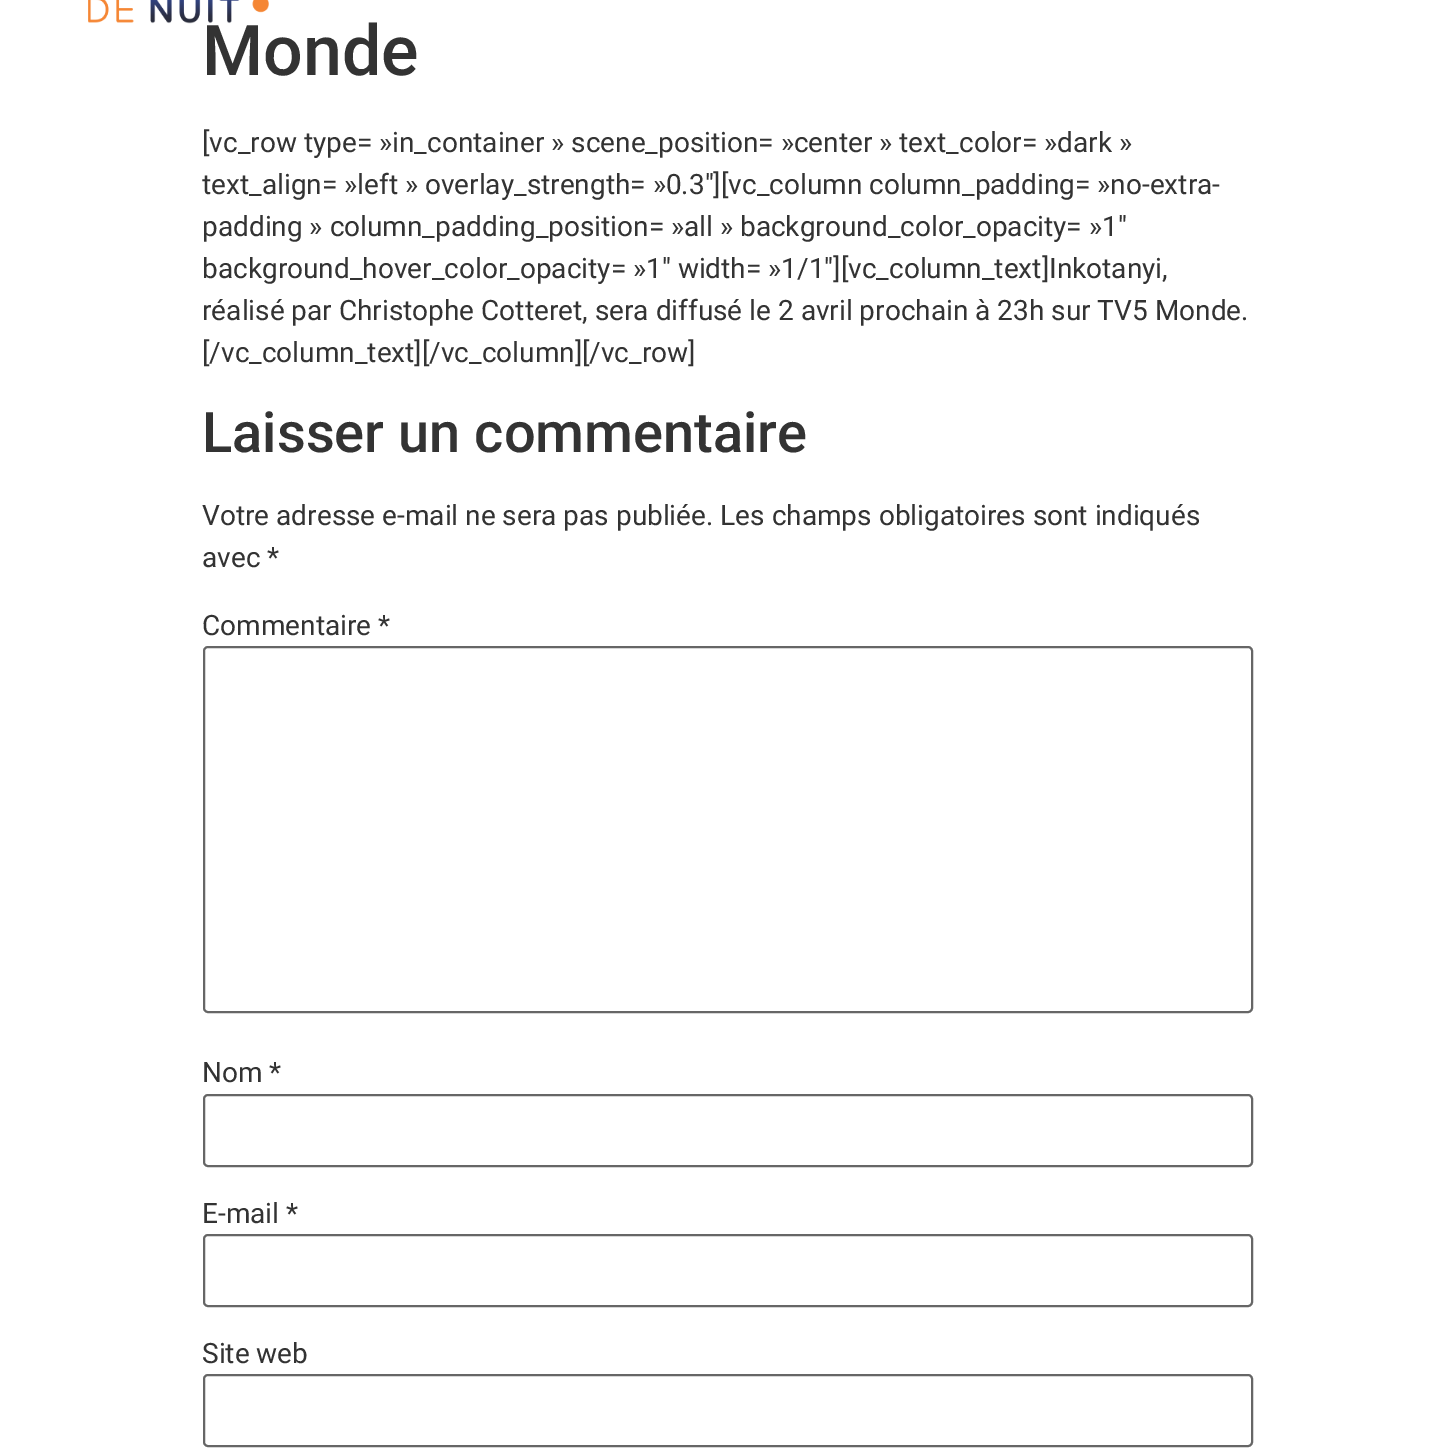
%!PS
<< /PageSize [1453 1450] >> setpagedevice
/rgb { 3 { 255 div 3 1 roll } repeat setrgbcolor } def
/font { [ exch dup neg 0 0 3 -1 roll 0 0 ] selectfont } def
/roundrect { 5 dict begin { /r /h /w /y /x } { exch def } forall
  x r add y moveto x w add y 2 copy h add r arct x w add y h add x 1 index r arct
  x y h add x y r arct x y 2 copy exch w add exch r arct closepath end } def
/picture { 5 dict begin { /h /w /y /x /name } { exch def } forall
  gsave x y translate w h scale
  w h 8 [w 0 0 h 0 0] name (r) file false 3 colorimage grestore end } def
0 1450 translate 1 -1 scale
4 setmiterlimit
255 255 255 rgb
0 0 1453 1450 rectfill
102 102 102 rgb
2 setlinewidth
204 647 1048 365 4 roundrect stroke
204 1095 1048 71 4 roundrect stroke
204 1235 1048 71 4 roundrect stroke
204 1375 1048 71 4 roundrect stroke
/Roboto-Medium 70 font
51 51 51 rgb
202 75 moveto (Monde) show
(img/1.rgb) 88 0 181 24 picture
/Roboto-Regular 28 font
[
  [([vc_row type= »in_container » scene_position= »center » text_color= »dark ») 202 152]
  [(text_align= »left » overlay_strength= »0.3″][vc_column column_padding= »no-extra-) 202 194]
  [(padding » column_padding_position= »all » background_color_opacity= »1″) 202 236]
  [(background_hover_color_opacity= »1″ width= »1/1″][vc_column_text]Inkotanyi,) 202 278]
  [(réalisé par Christophe Cotteret, sera diffusé le 2 avril prochain à 23h sur TV5 Monde.) 202 320]
  [([/vc_column_text][/vc_column][/vc_row]) 202 362]
] { aload pop moveto show } forall
/Roboto-Medium 56 font
202 452 moveto (Laisser un commentaire) show
/Roboto-Regular 28 font
[
  [(Votre adresse e-mail ne sera pas publiée. Les champs obligatoires sont indiqués) 202 525]
  [(avec *) 202 567]
  [(Commentaire *) 202 635]
  [(Nom *) 202 1082]
  [(E-mail *) 202 1223]
  [(Site web) 202 1363]
] { aload pop moveto show } forall
showpage
